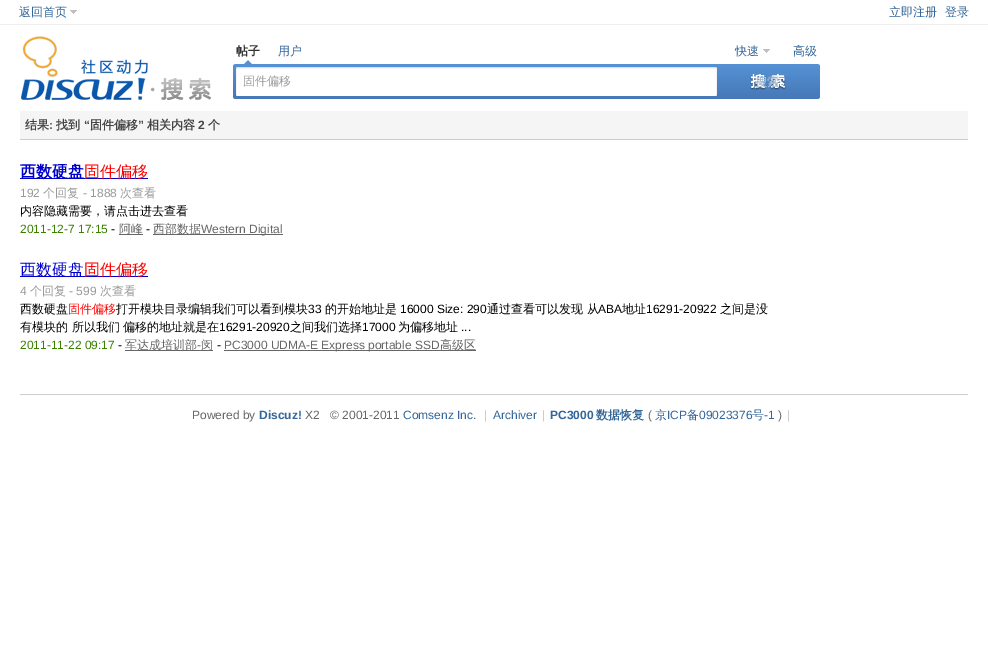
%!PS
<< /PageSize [988 662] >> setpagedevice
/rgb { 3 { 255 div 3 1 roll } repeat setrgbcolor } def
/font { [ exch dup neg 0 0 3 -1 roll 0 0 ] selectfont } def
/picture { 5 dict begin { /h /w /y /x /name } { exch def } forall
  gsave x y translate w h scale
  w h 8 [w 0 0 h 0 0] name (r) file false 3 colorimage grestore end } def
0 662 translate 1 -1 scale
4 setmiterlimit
255 255 255 rgb
0 0 988 662 rectfill
239 239 239 rgb
0 24 988 1 rectfill
(img/1.rgb) 70 10 7 4 picture
(img/2.rgb) 21 36 190 65 picture
(img/3.rgb) 244 60 8 4 picture
(img/1.rgb) 763 49 7 4 picture
(img/4.rgb) 237 64 479 35 picture
(img/5.rgb) 233 64 4 35 picture
(img/6.rgb) 716 64 104 35 picture
[
  [20 111 948 28 245 245 245]
  [20 139 948 1 204 204 204]
  [20 178 128 1 0 0 204]
  [119 234 24 1 102 102 102]
  [153 234 130 1 102 102 102]
  [20 276 128 1 0 0 204]
  [125 350 88 1 102 102 102]
  [224 350 252 1 102 102 102]
  [20 394 948 1 205 205 205]
] { aload pop rgb rectfill } forall
/WenQuanYiZenHei-Medium 12 font
51 102 153 rgb
[
  [(返回首页) 19 16]
  [(立即注册) 889 16]
  [(登录) 945 16]
] { aload pop moveto show } forall
/WenQuanYiZenHei-Bold 12 font
51 51 51 rgb
236 55 moveto (帖子) show
/WenQuanYiZenHei-Medium 12 font
51 102 153 rgb
[
  [(用户) 278 55]
  [(快速) 735 55]
  [(高级) 793 55]
] { aload pop moveto show } forall
153 153 153 rgb
243 85 moveto (固件偏移) show
/WenQuanYiZenHei-Bold 12 font
166 187 212 rgb
755 86 moveto (搜索) show
68 68 68 rgb
25 129 moveto (结果) show
/LiberationSans-Bold 12 font
49 129 moveto (:) show
/WenQuanYiZenHei-Bold 12 font
56 129 moveto (找到) show
/LiberationSans-Bold 12 font
84 129 moveto (“) show
/WenQuanYiZenHei-Bold 12 font
90 129 moveto (固件偏移) show
/LiberationSans-Bold 12 font
138 129 moveto (”) show
/WenQuanYiZenHei-Bold 12 font
147 129 moveto (相关内容) show
/LiberationSans-Bold 12 font
198 129 moveto (2) show
/WenQuanYiZenHei-Bold 12 font
208 129 moveto (个) show
/WenQuanYiZenHei-Bold 16 font
0 0 204 rgb
20 177 moveto (西数硬盘) show
/WenQuanYiZenHei-Medium 16 font
255 0 0 rgb
84 177 moveto (固件偏移) show
/LiberationSans-Regular 12 font
153 153 153 rgb
20 197 moveto (192) show
/WenQuanYiZenHei-Medium 12 font
43 197 moveto (个回复) show
/LiberationSans-Regular 12 font
83 197 moveto (- 1888) show
/WenQuanYiZenHei-Medium 12 font
120 197 moveto (次查看) show
0 0 0 rgb
20 215 moveto (内容隐藏需要，请点击进去查看) show
/LiberationSans-Regular 12 font
58 128 0 rgb
20 233 moveto (2011-12-7 17:15) show
0 0 0 rgb
111 233 moveto (-) show
/WenQuanYiZenHei-Medium 12 font
102 102 102 rgb
119 233 moveto (阿峰) show
/LiberationSans-Regular 12 font
0 0 0 rgb
146 233 moveto (-) show
/WenQuanYiZenHei-Medium 12 font
102 102 102 rgb
153 233 moveto (西部数据) show
/LiberationSans-Regular 12 font
201 233 moveto (Western Digital) show
/WenQuanYiZenHei-Medium 16 font
0 0 204 rgb
20 275 moveto (西数硬盘) show
255 0 0 rgb
84 275 moveto (固件偏移) show
/LiberationSans-Regular 12 font
153 153 153 rgb
20 295 moveto (4) show
/WenQuanYiZenHei-Medium 12 font
30 295 moveto (个回复) show
/LiberationSans-Regular 12 font
69 295 moveto (- 599) show
/WenQuanYiZenHei-Medium 12 font
100 295 moveto (次查看) show
0 0 0 rgb
20 313 moveto (西数硬盘) show
255 0 0 rgb
68 313 moveto (固件偏移) show
0 0 0 rgb
116 313 moveto (打开模块目录编辑我们可以看到模块) show
/LiberationSans-Regular 12 font
308 313 moveto (33) show
/WenQuanYiZenHei-Medium 12 font
325 313 moveto (的开始地址是) show
/LiberationSans-Regular 12 font
400 313 moveto (16000 Size: 290) show
/WenQuanYiZenHei-Medium 12 font
487 313 moveto (通过查看可以发现 从) show
/LiberationSans-Regular 12 font
598 313 moveto (ABA) show
/WenQuanYiZenHei-Medium 12 font
622 313 moveto (地址) show
/LiberationSans-Regular 12 font
646 313 moveto (16291-20922) show
/WenQuanYiZenHei-Medium 12 font
720 313 moveto (之间是没) show
20 331 moveto (有模块的 所以我们 偏移的地址就是在) show
/LiberationSans-Regular 12 font
219 331 moveto (16291-20920) show
/WenQuanYiZenHei-Medium 12 font
290 331 moveto (之间我们选择) show
/LiberationSans-Regular 12 font
362 331 moveto (17000) show
/WenQuanYiZenHei-Medium 12 font
398 331 moveto (为偏移地址) show
/LiberationSans-Regular 12 font
461 331 moveto (...) show
58 128 0 rgb
20 349 moveto (2011-11-22 09:17) show
0 0 0 rgb
118 349 moveto (-) show
/WenQuanYiZenHei-Medium 12 font
102 102 102 rgb
125 349 moveto (军达成培训部) show
/LiberationSans-Regular 12 font
197 349 moveto (-) show
/WenQuanYiZenHei-Medium 12 font
201 349 moveto (闵) show
/LiberationSans-Regular 12 font
0 0 0 rgb
217 349 moveto (-) show
102 102 102 rgb
224 349 moveto (PC3000 UDMA-E Express portable SSD) show
/WenQuanYiZenHei-Medium 12 font
440 349 moveto (高级区) show
/LiberationSans-Regular 12 font
192 419 moveto (Powered by) show
/LiberationSans-Bold 12 font
51 102 153 rgb
259 419 moveto (Discuz!) show
/LiberationSans-Regular 12 font
102 102 102 rgb
305 419 moveto (X2) show
330 419 moveto (© 2001-2011) show
51 102 153 rgb
403 419 moveto (Comsenz Inc.) show
204 204 204 rgb
484 419 moveto (|) show
51 102 153 rgb
493 419 moveto (Archiver) show
204 204 204 rgb
542 419 moveto (|) show
/LiberationSans-Bold 12 font
51 102 153 rgb
550 419 moveto (PC3000) show
/WenQuanYiZenHei-Bold 12 font
596 419 moveto (数据恢复) show
/LiberationSans-Regular 12 font
102 102 102 rgb
648 419 moveto (\() show
/WenQuanYiZenHei-Medium 12 font
51 102 153 rgb
655 419 moveto (京) show
/LiberationSans-Regular 12 font
667 419 moveto (ICP) show
/WenQuanYiZenHei-Medium 12 font
687 419 moveto (备) show
/LiberationSans-Regular 12 font
699 419 moveto (09023376) show
/WenQuanYiZenHei-Medium 12 font
752 419 moveto (号) show
/LiberationSans-Regular 12 font
764 419 moveto (-1) show
102 102 102 rgb
778 419 moveto (\)) show
204 204 204 rgb
787 419 moveto (|) show
showpage
